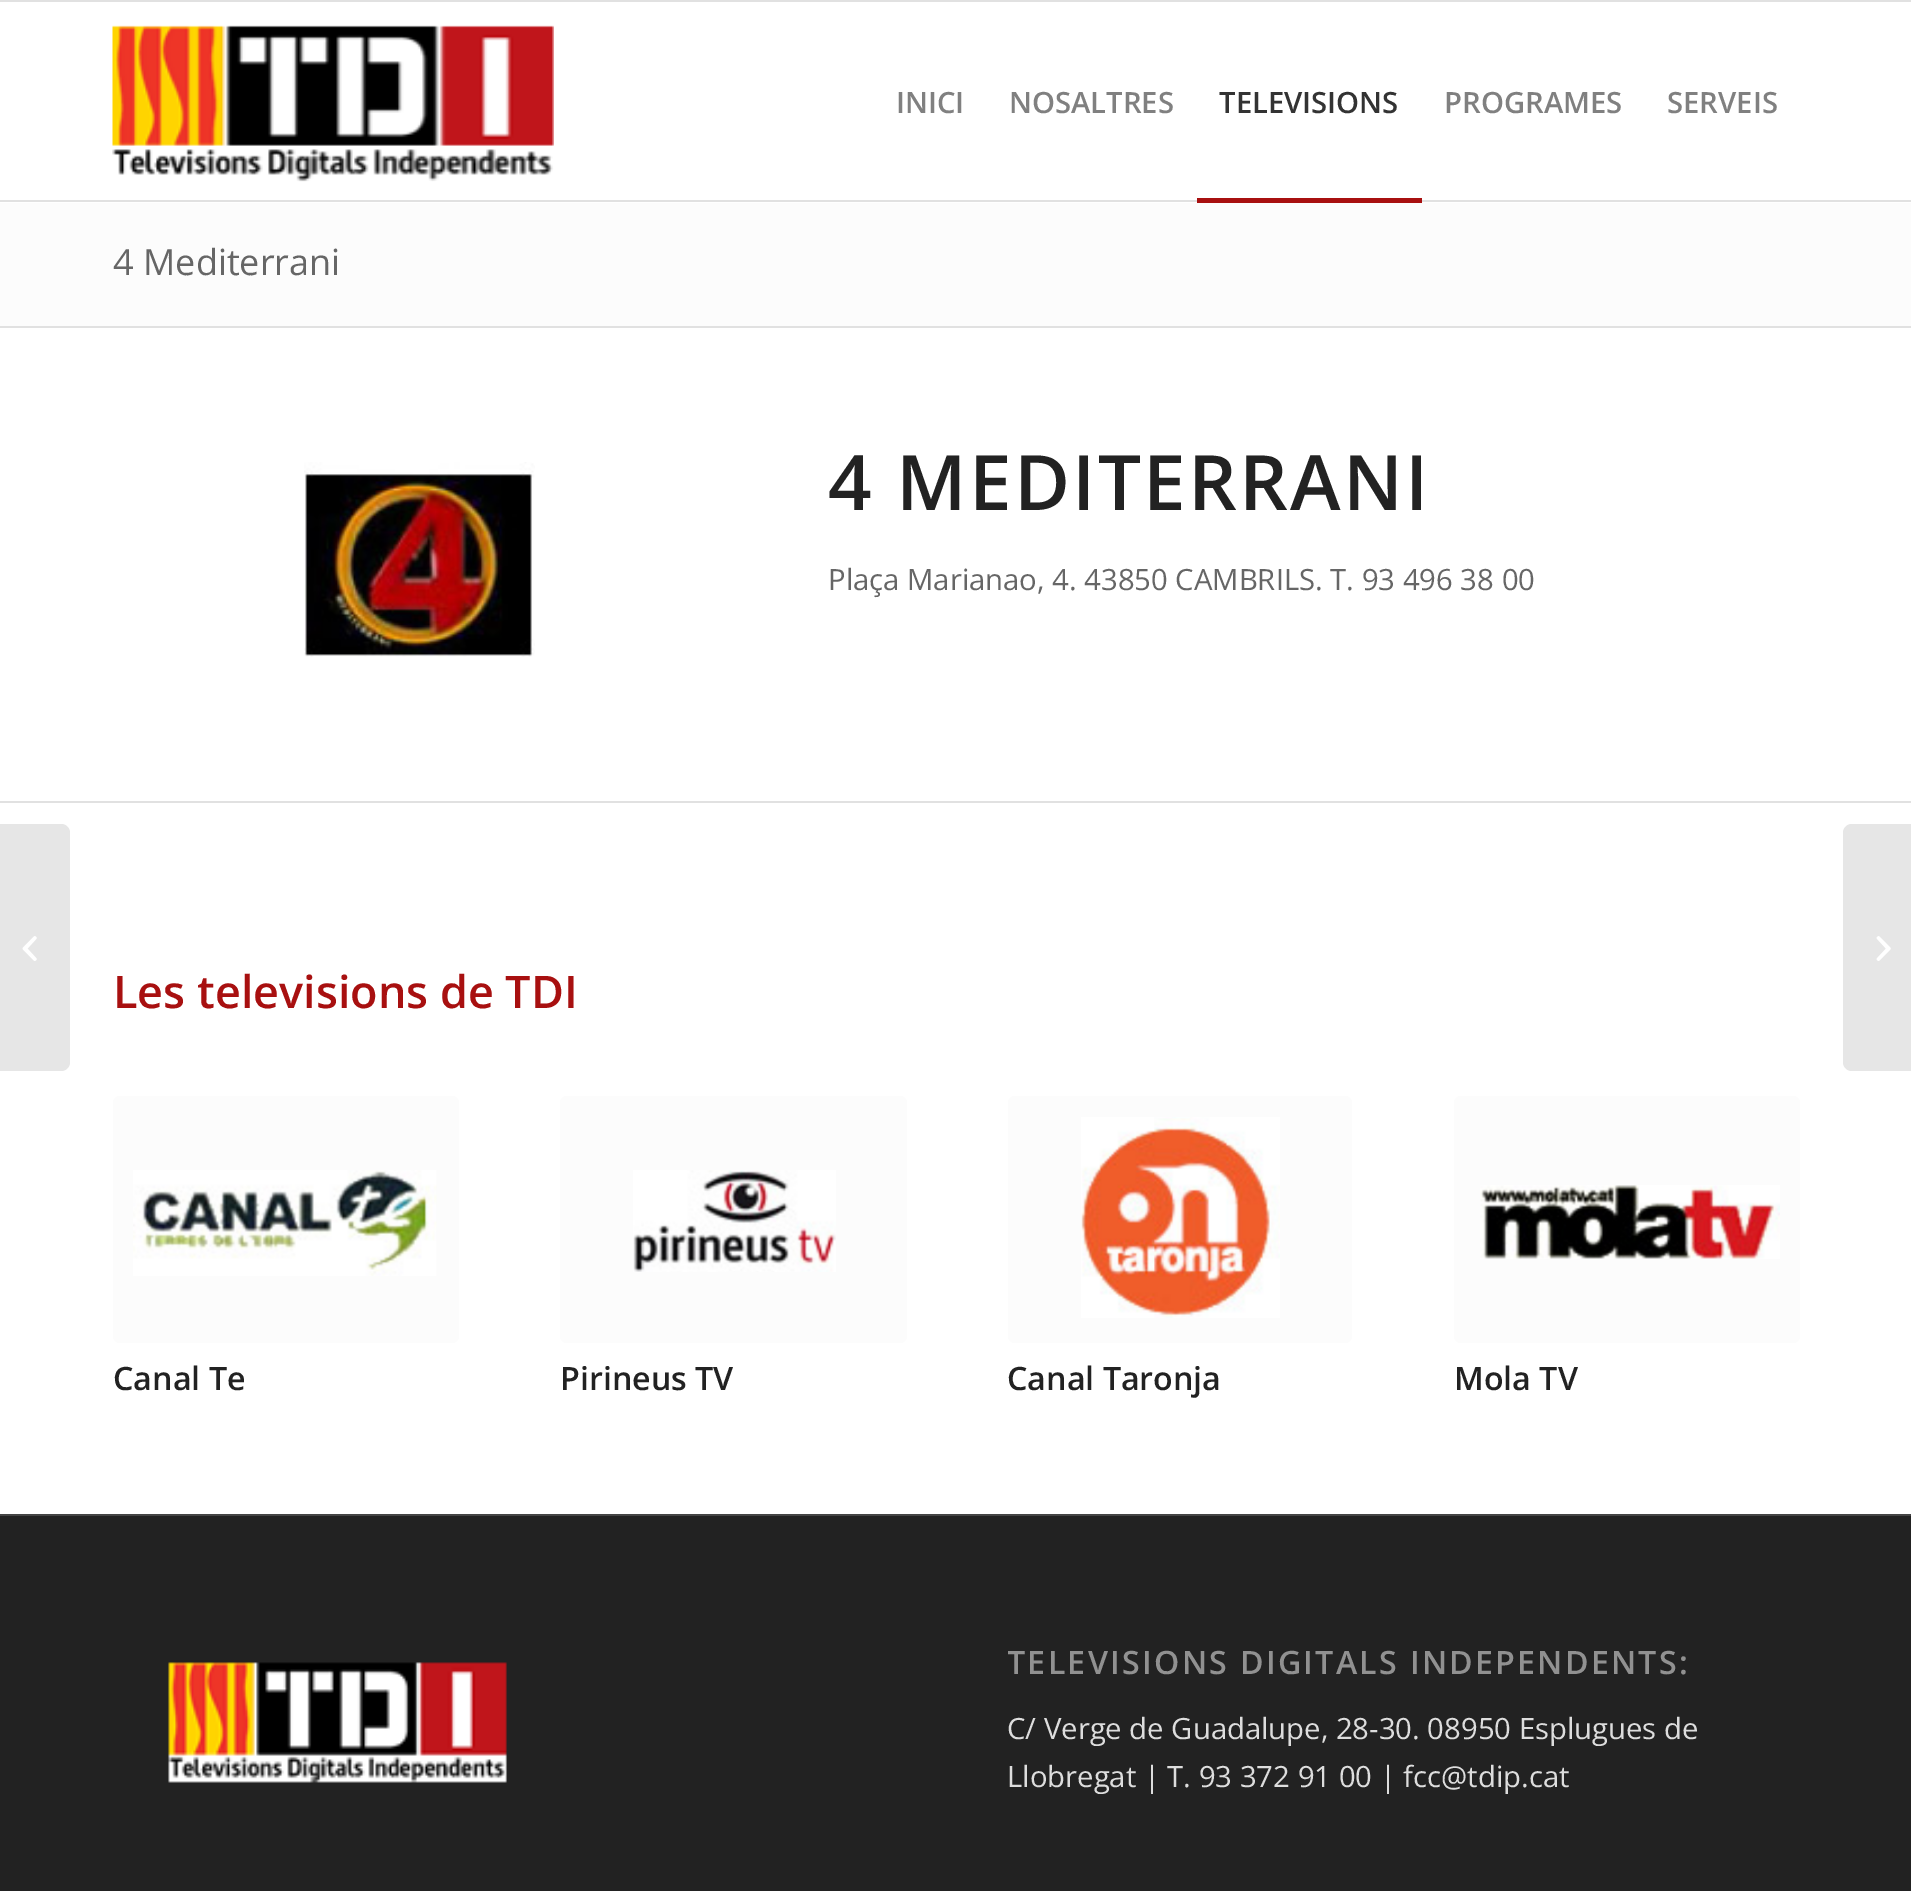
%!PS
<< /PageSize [1911 1891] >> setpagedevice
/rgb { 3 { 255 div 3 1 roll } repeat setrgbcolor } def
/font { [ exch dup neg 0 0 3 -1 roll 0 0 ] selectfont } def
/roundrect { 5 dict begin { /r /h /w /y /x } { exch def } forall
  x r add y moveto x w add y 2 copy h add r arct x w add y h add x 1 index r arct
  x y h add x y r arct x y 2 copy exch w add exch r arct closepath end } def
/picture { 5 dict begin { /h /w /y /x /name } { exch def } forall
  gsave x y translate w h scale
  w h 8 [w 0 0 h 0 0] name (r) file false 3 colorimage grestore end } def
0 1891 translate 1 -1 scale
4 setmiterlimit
255 255 255 rgb
0 0 1911 1891 rectfill
225 225 225 rgb
0 0 1911 2 rectfill
0 200 1911 2 rectfill
(img/1.rgb) 112 25 442 157 picture
168 16 16 rgb
1197 198 225 5 rectfill
230 230 230 rgb
0 824 moveto 61 824 lineto 66 824 70 828 70 833 curveto 70 1062 lineto 70 1067 66 1071 61 1071 curveto 0 1071 lineto closepath fill
(img/2.rgb) 22 936 15 25 picture
252 252 252 rgb
0 203 1911 123 rectfill
225 225 225 rgb
0 326 1911 2 rectfill
(img/3.rgb) 304 462 231 195 picture
0 801 1911 2 rectfill
252 252 252 rgb
113 1096 346 247 7 roundrect fill
(img/4.rgb) 133 1170 304 106 picture
560 1096 347 247 7 roundrect fill
(img/5.rgb) 633 1170 203 102 picture
1008 1096 344 247 7 roundrect fill
(img/6.rgb) 1081 1117 199 201 picture
1454 1096 346 247 7 roundrect fill
(img/7.rgb) 1480 1185 300 74 picture
34 34 34 rgb
0 1516 1911 375 rectfill
68 68 68 rgb
0 1514 1911 2 rectfill
(img/8.rgb) 168 1662 339 121 picture
230 230 230 rgb
1852 824 moveto 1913 824 lineto 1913 1071 lineto 1852 1071 lineto 1847 1071 1843 1067 1843 1062 curveto 1843 833 lineto 1843 828 1847 824 1852 824 curveto closepath fill
(img/9.rgb) 1876 936 15 25 picture
/OpenSans-SemiBold 29.25 font
128 128 128 rgb
896 113 moveto (INICI) show
1009 113 moveto (NOSALTRES) show
51 51 51 rgb
1219 113 moveto (TELEVISIONS) show
128 128 128 rgb
1444 113 moveto (PROGRAMES) show
1667 113 moveto (SERVEIS) show
/OpenSans-Regular 36 font
102 102 102 rgb
113 275 moveto (4 Mediterrani) show
/OpenSans-SemiBold 76.5 font
34 34 34 rgb
828 510 moveto 2.25 0 (4 MEDITERRANI) ashow
/OpenSans-Regular 29.25 font
102 102 102 rgb
828 590 moveto (Plaça Marianao, 4. 43850 CAMBRILS. T. 93 496 38 00) show
/OpenSans-SemiBold 45 font
168 16 16 rgb
113 1008 moveto (Les televisions de TDI) show
/OpenSans-SemiBold 32.2 font
34 34 34 rgb
[
  [(Canal Te) 113 1390]
  [(Pirineus TV) 560 1390]
  [(Canal Taronja) 1007 1390]
  [(Mola TV) 1454 1390]
] { aload pop moveto show } forall
gsave
1008 1618 792 209 rectclip
145 145 145 rgb
1007 1674 moveto 2.25 0 (TELEVISIONS DIGITALS INDEPENDENTS:) ashow
grestore
/OpenSans-Regular 29.25 font
221 221 221 rgb
1007 1739 moveto (C/ Verge de Guadalupe, 28-30. 08950 Esplugues de) show
1007 1787 moveto (Llobregat | T. 93 372 91 00 | fcc@tdip.cat) show
showpage
